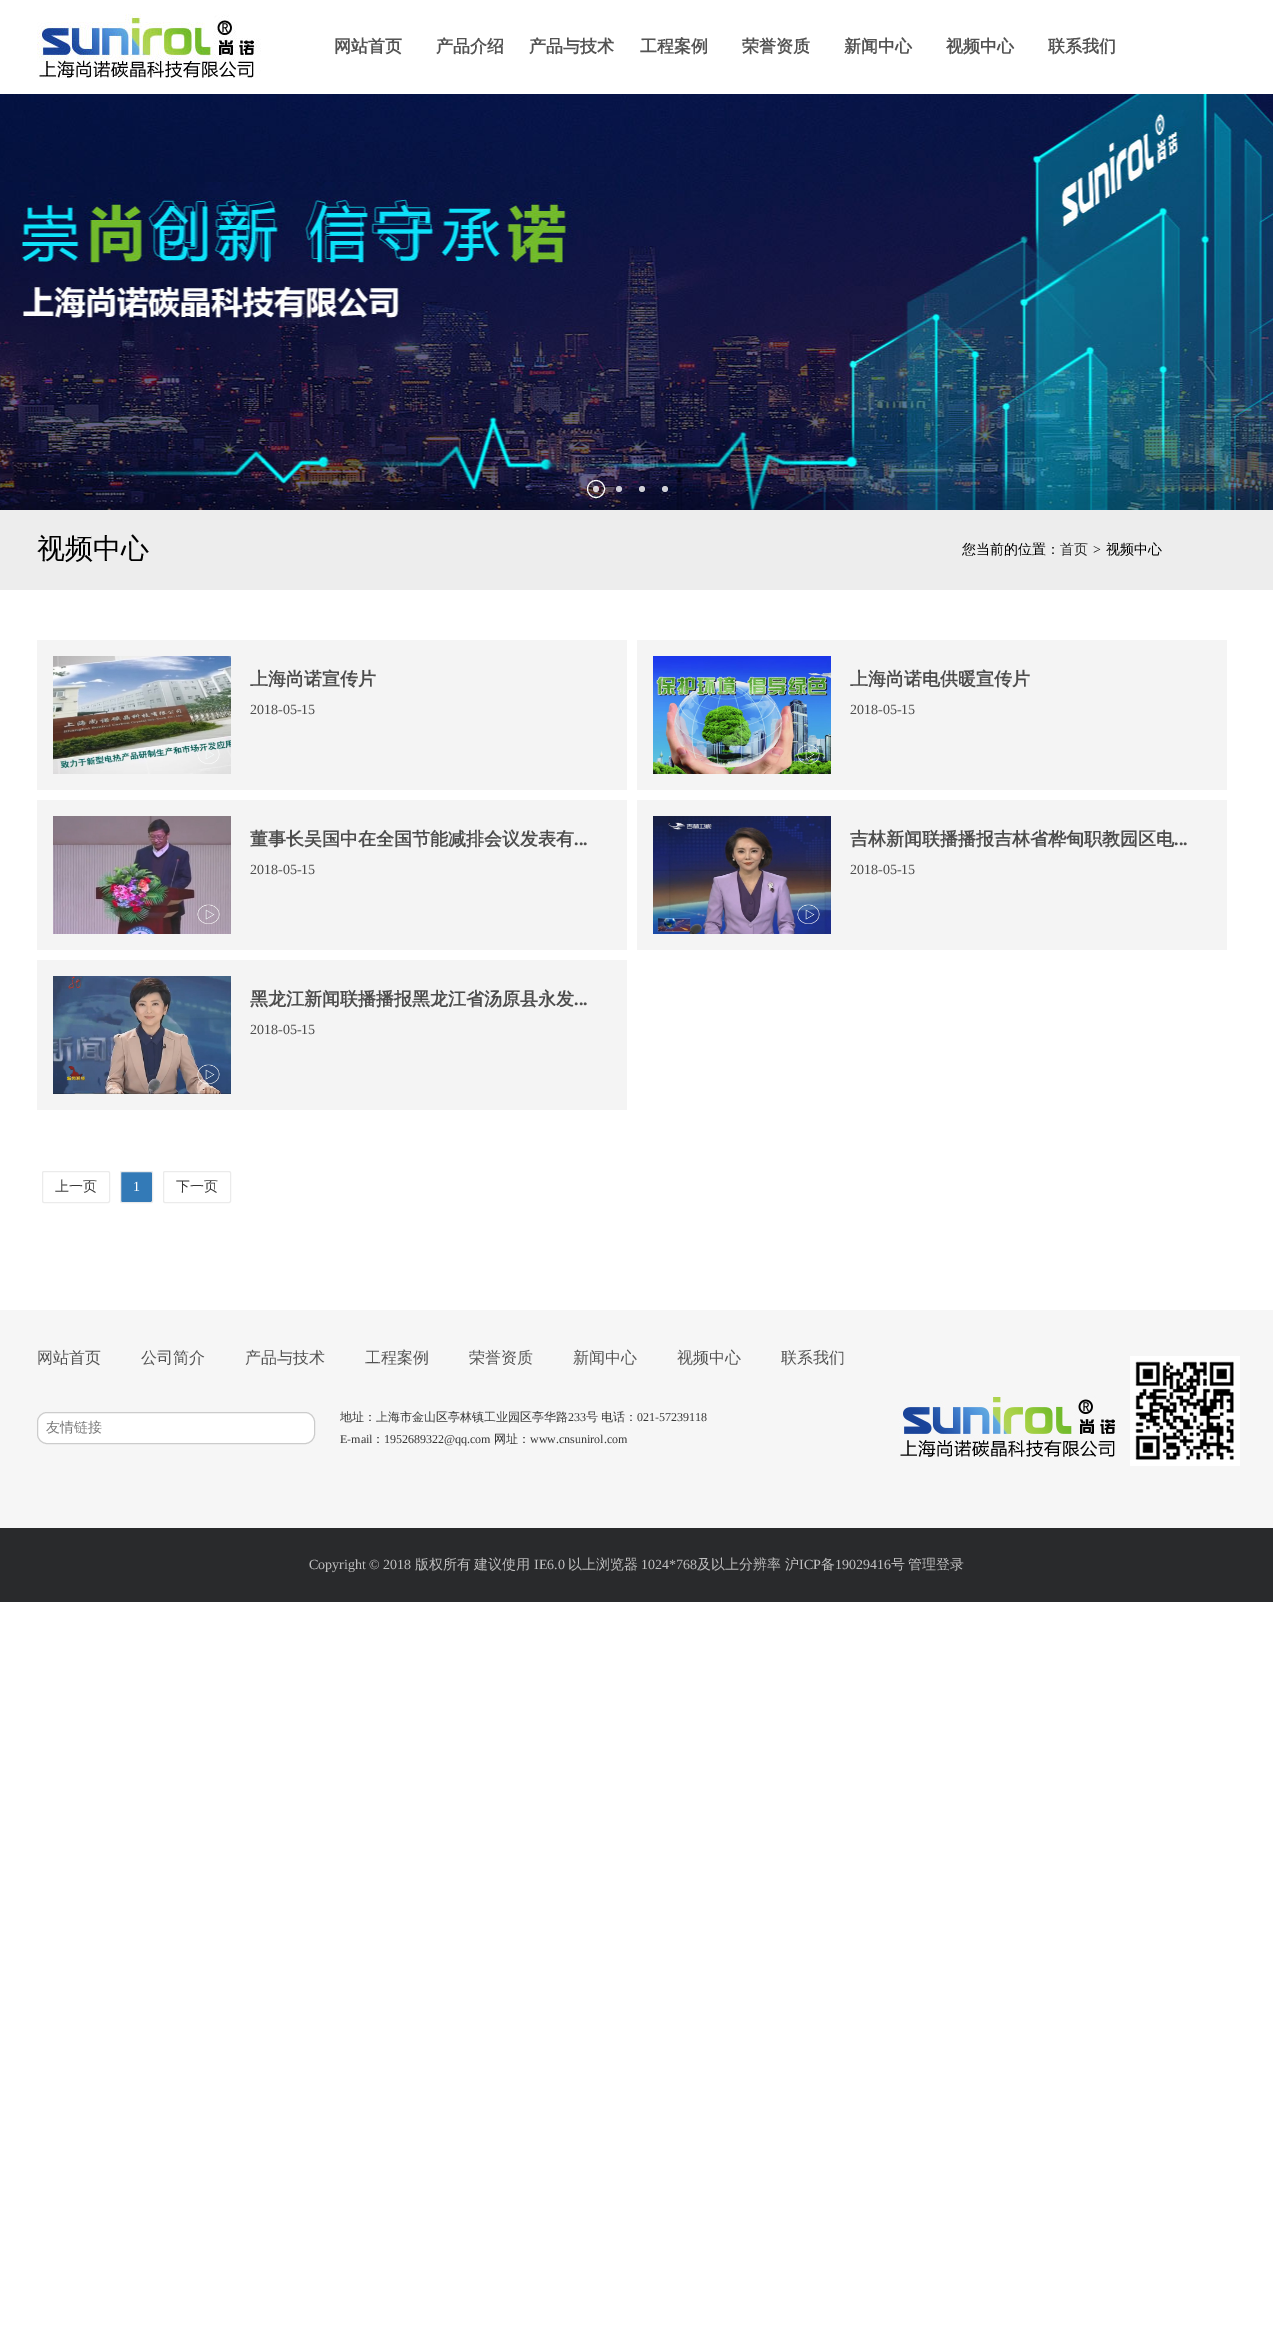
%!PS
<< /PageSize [1273 2336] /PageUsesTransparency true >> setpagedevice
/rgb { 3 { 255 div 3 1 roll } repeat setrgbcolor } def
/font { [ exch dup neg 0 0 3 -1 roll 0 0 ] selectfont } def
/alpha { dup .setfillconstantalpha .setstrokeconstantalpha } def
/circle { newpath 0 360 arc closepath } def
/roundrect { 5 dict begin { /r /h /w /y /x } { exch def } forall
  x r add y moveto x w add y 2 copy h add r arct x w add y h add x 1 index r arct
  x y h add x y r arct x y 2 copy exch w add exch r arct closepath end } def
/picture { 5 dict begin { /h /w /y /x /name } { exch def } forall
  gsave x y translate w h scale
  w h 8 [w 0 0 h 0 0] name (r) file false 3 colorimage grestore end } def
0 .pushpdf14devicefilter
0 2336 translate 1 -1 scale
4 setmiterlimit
255 255 255 rgb
0 0 1273 2336 rectfill
(img/1.rgb) 37 14 224 64 picture
(img/2.rgb) 0 94 1273 416 picture
596 489 8.5 circle stroke
0.8 alpha
596 489 3 circle fill
619 489 3 circle fill
642 489 3 circle fill
665 489 3 circle fill
1 alpha
237 237 237 rgb
0 510 1273 80 rectfill
244 244 244 rgb
37 640 590 150 rectfill
(img/3.rgb) 53 656 178 118 picture
637 640 590 150 rectfill
(img/4.rgb) 653 656 178 118 picture
37 800 590 150 rectfill
(img/5.rgb) 53 816 178 118 picture
637 800 590 150 rectfill
(img/6.rgb) 653 816 178 118 picture
37 960 590 150 rectfill
(img/7.rgb) 53 976 178 118 picture
235 235 235 rgb
42.5 1171.5 67 31 1.5 roundrect stroke
51 122 183 rgb
120.5 1171.5 32 31 1.5 roundrect gsave fill grestore
235 235 235 rgb
stroke
163.5 1171.5 67 31 1.5 roundrect stroke
246 246 246 rgb
0 1310 1273 218 rectfill
255 255 255 rgb
37.5 1412.5 277 31 9.5 roundrect gsave fill grestore
204 204 204 rgb
stroke
(img/8.rgb) 899 1396 216 61 picture
(img/9.rgb) 1130 1356 110 110 picture
41 42 44 rgb
0 1528 1273 74 rectfill
/WenQuanYiZenHei-Bold 17 font
83 83 83 rgb
[
  [(网站首页) 334 52]
  [(产品介绍) 436 52]
  [(产品与技术) 529 52]
  [(工程案例) 640 52]
  [(荣誉资质) 742 52]
  [(新闻中心) 844 52]
  [(视频中心) 946 52]
  [(联系我们) 1048 52]
] { aload pop moveto show } forall
/WenQuanYiZenHei-Medium 28 font
0 0 0 rgb
37 558 moveto (视频中心) show
/WenQuanYiZenHei-Medium 14 font
962 554 moveto (您当前的位置：) show
34 34 34 rgb
1060 554 moveto (首页) show
/LiberationSerif-Regular 14 font
0 0 0 rgb
1093 554 moveto (>) show
/WenQuanYiZenHei-Medium 14 font
1106 554 moveto (视频中心) show
/WenQuanYiZenHei-Bold 18 font
77 77 77 rgb
250 685 moveto (上海尚诺宣传片) show
/LiberationSerif-Regular 14 font
250 714 moveto (2018-05-15) show
/WenQuanYiZenHei-Bold 18 font
850 685 moveto (上海尚诺电供暖宣传片) show
/LiberationSerif-Regular 14 font
850 714 moveto (2018-05-15) show
/WenQuanYiZenHei-Bold 18 font
250 845 moveto (董事长吴国中在全国节能减排会议发表有) show
/LiberationSerif-Bold 18 font
574 845 moveto (...) show
/LiberationSerif-Regular 14 font
250 874 moveto (2018-05-15) show
/WenQuanYiZenHei-Bold 18 font
850 845 moveto (吉林新闻联播播报吉林省桦甸职教园区电) show
/LiberationSerif-Bold 18 font
1174 845 moveto (...) show
/LiberationSerif-Regular 14 font
850 874 moveto (2018-05-15) show
/WenQuanYiZenHei-Bold 18 font
250 1005 moveto (黑龙江新闻联播播报黑龙江省汤原县永发) show
/LiberationSerif-Bold 18 font
574 1005 moveto (...) show
/LiberationSerif-Regular 14 font
250 1034 moveto (2018-05-15) show
/WenQuanYiZenHei-Medium 14 font
54 54 54 rgb
55 1191 moveto (上一页) show
/LiberationSerif-Regular 14 font
255 255 255 rgb
133 1191 moveto (1) show
/WenQuanYiZenHei-Medium 14 font
54 54 54 rgb
176 1191 moveto (下一页) show
/WenQuanYiZenHei-Medium 16 font
83 83 83 rgb
[
  [(网站首页) 37 1363]
  [(公司简介) 141 1363]
  [(产品与技术) 245 1363]
  [(工程案例) 365 1363]
  [(荣誉资质) 469 1363]
  [(新闻中心) 573 1363]
  [(视频中心) 677 1363]
  [(联系我们) 781 1363]
] { aload pop moveto show } forall
/WenQuanYiZenHei-Medium 14 font
121 121 121 rgb
46 1432 moveto (友情链接) show
/WenQuanYiZenHei-Medium 12 font
54 54 54 rgb
340 1421 moveto (地址：上海市金山区亭林镇工业园区亭华路) show
/LiberationSerif-Regular 12 font
568 1421 moveto (233) show
/WenQuanYiZenHei-Medium 12 font
586 1421 moveto (号) show
601 1421 moveto (电话：) show
/LiberationSerif-Regular 12 font
637 1421 moveto (021-57239118) show
340 1443 moveto (E-mail) show
/WenQuanYiZenHei-Medium 12 font
372 1443 moveto (：) show
/LiberationSerif-Regular 12 font
384 1443 moveto (1952689322@qq.com) show
/WenQuanYiZenHei-Medium 12 font
494 1443 moveto (网址：) show
/LiberationSerif-Regular 12 font
530 1443 moveto (www.cnsunirol.com) show
/LiberationSerif-Regular 14 font
191 191 191 rgb
309 1569 moveto (Copyright © 2018) show
/WenQuanYiZenHei-Medium 14 font
415 1569 moveto (版权所有) show
474 1569 moveto (建议使用) show
/LiberationSerif-Regular 14 font
534 1569 moveto (IE6.0) show
/WenQuanYiZenHei-Medium 14 font
568 1569 moveto (以上浏览器) show
/LiberationSerif-Regular 14 font
641 1569 moveto (1024*768) show
/WenQuanYiZenHei-Medium 14 font
697 1569 moveto (及以上分辨率) show
785 1569 moveto (沪) show
/LiberationSerif-Regular 14 font
799 1569 moveto (ICP) show
/WenQuanYiZenHei-Medium 14 font
821 1569 moveto (备) show
/LiberationSerif-Regular 14 font
835 1569 moveto (19029416) show
/WenQuanYiZenHei-Medium 14 font
891 1569 moveto (号) show
908 1569 moveto (管理登录) show
.poppdf14devicefilter showpage
